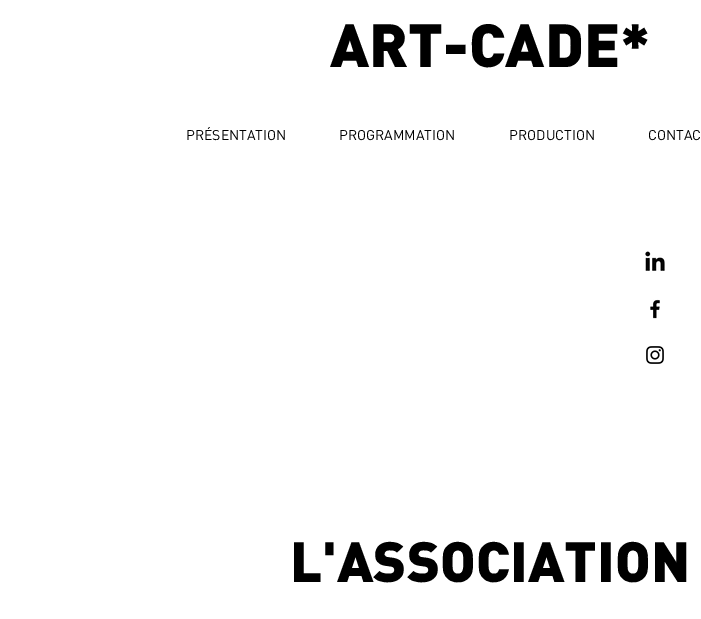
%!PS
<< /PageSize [701 619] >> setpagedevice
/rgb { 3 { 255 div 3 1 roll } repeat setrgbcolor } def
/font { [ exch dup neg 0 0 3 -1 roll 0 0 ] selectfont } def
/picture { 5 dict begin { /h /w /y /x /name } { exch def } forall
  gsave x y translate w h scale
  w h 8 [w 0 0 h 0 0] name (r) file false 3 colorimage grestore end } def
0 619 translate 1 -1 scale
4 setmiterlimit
255 255 255 rgb
0 0 701 619 rectfill
(img/1.rgb) 645 251 20 20 picture
(img/2.rgb) 650 299 10 20 picture
(img/3.rgb) 646 346 18 18 picture
/DIN-Black 60 font
0 0 0 rgb
330 67 moveto (ART-CADE*) show
/DIN-Regular 14 font
[
  [(PRÉSENTATION) 186 140]
  [(PROGRAMMATION) 339 140]
  [(PRODUCTION) 509 140]
  [(CONTAC) 648 140]
] { aload pop moveto show } forall
/DIN-Black 56 font
290 582 moveto (L'ASSOCIATION) show
showpage
